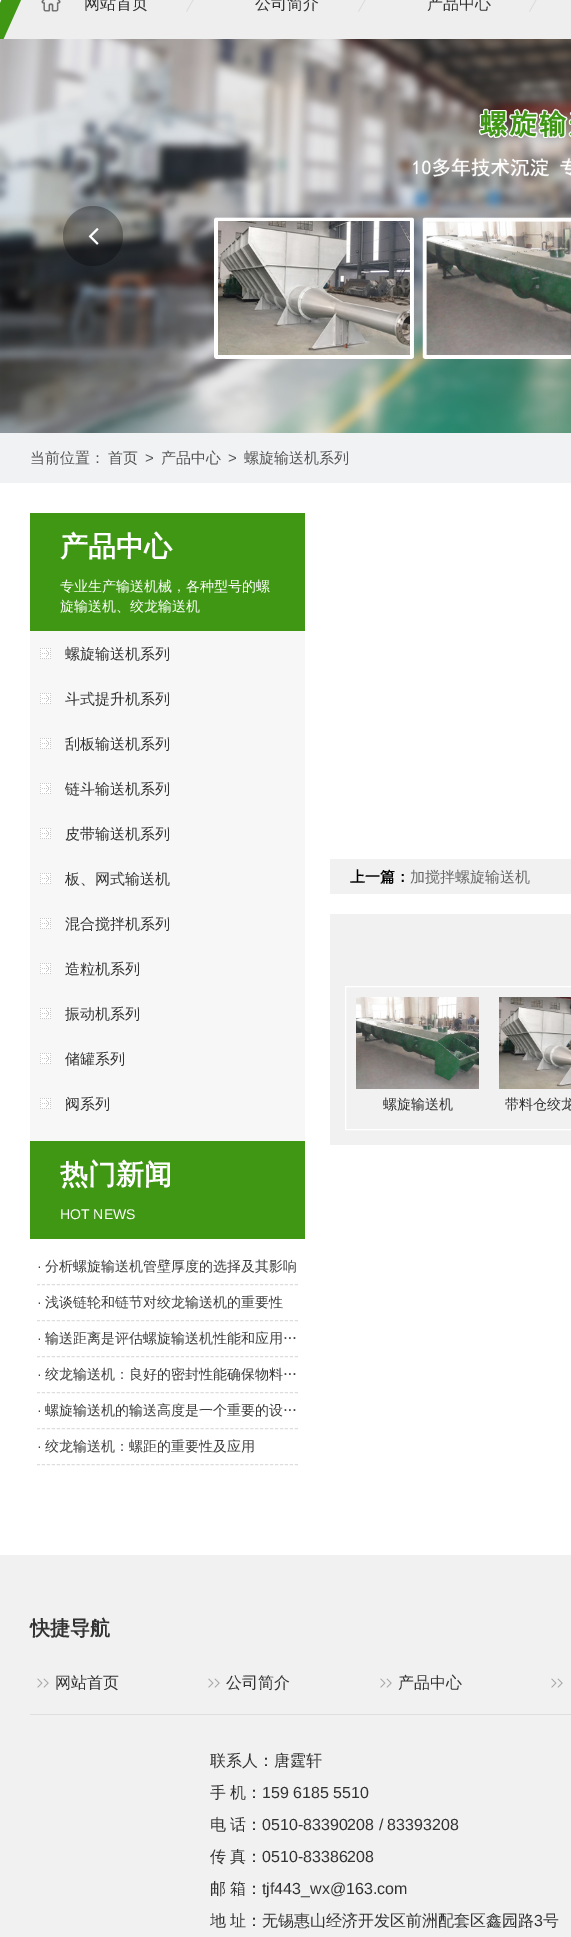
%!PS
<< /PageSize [571 1937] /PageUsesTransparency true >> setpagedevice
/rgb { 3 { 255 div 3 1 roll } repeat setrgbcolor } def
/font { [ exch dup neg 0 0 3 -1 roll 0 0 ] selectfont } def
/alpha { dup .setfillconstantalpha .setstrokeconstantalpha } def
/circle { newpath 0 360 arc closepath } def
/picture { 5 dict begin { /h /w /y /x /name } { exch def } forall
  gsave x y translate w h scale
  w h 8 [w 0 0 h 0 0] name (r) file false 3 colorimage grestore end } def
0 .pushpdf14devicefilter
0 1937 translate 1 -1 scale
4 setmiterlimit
255 255 255 rgb
0 0 571 1937 rectfill
(img/1.rgb) 0 0 571 39 picture
(img/2.rgb) 186 0 8 12 picture
(img/2.rgb) 358 0 8 12 picture
(img/2.rgb) 529 0 8 12 picture
(img/3.rgb) 0 39 571 394 picture
0.3 alpha
0 0 0 rgb
93 236 30 circle fill
1 alpha
(img/4.rgb) 88 228 11 17 picture
[
  [0 433 571 50 241 242 244]
  [30 513 275 118 63 151 20]
  [30 631 275 510 247 247 247]
] { aload pop rgb rectfill } forall
(img/5.rgb) 40 648 11 11 picture
(img/5.rgb) 40 693 11 11 picture
(img/5.rgb) 40 738 11 11 picture
(img/5.rgb) 40 783 11 11 picture
(img/5.rgb) 40 828 11 11 picture
(img/5.rgb) 40 873 11 11 picture
(img/5.rgb) 40 918 11 11 picture
(img/5.rgb) 40 963 11 11 picture
(img/5.rgb) 40 1008 11 11 picture
(img/5.rgb) 40 1053 11 11 picture
(img/5.rgb) 40 1098 11 11 picture
63 151 20 rgb
30 1141 275 98 rectfill
222 222 222 rgb
[3 1.96] 0 setdash
37 1284.5 moveto 298 1284.5 lineto stroke
37 1320.5 moveto 298 1320.5 lineto stroke
37 1356.5 moveto 298 1356.5 lineto stroke
37 1392.5 moveto 298 1392.5 lineto stroke
37 1428.5 moveto 298 1428.5 lineto stroke
37 1464.5 moveto 298 1464.5 lineto stroke
241 241 241 rgb
330 859 241 35 rectfill
330 914 241 231 rectfill
255 255 255 rgb
[] 0 setdash
345.5 986.5 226 143 rectstroke
(img/6.rgb) 356 997 123 92 picture
(img/7.rgb) 499 997 72 92 picture
241 241 241 rgb
0 1555 571 382 rectfill
222 222 222 rgb
30 1714 541 1 rectfill
(img/8.rgb) 37 1678 12 10 picture
(img/8.rgb) 208 1678 12 10 picture
(img/8.rgb) 380 1678 12 10 picture
(img/8.rgb) 551 1678 12 10 picture
/WenQuanYiZenHei-Medium 16 font
51 51 51 rgb
[
  [(网站首页) 84 9]
  [(公司简介) 255 9]
  [(产品中心) 427 9]
] { aload pop moveto show } forall
/WenQuanYiZenHei-Medium 15 font
85 85 85 rgb
30 463 moveto (当前位置：) show
108 463 moveto (首页) show
/LiberationSans-Regular 15 font
145 463 moveto (>) show
/WenQuanYiZenHei-Medium 15 font
161 463 moveto (产品中心) show
/LiberationSans-Regular 15 font
228 463 moveto (>) show
/WenQuanYiZenHei-Medium 15 font
244 463 moveto (螺旋输送机系列) show
/WenQuanYiZenHei-Bold 28 font
255 255 255 rgb
60 556 moveto (产品中心) show
/WenQuanYiZenHei-Medium 14 font
60 591 moveto (专业生产输送机械，各种型号的螺) show
60 611 moveto (旋输送机、绞龙输送机) show
/WenQuanYiZenHei-Medium 15 font
51 51 51 rgb
[
  [(螺旋输送机系列) 65 659]
  [(斗式提升机系列) 65 704]
  [(刮板输送机系列) 65 749]
  [(链斗输送机系列) 65 794]
  [(皮带输送机系列) 65 839]
  [(板、网式输送机) 65 884]
  [(混合搅拌机系列) 65 929]
  [(造粒机系列) 65 974]
  [(振动机系列) 65 1019]
  [(储罐系列) 65 1064]
  [(阀系列) 65 1109]
] { aload pop moveto show } forall
/WenQuanYiZenHei-Bold 28 font
255 255 255 rgb
60 1184 moveto (热门新闻) show
/LiberationSans-Regular 14 font
60 1219 moveto (HOT NEWS) show
61 61 61 rgb
37 1271 moveto (·) show
/WenQuanYiZenHei-Medium 14 font
45 1271 moveto (分析螺旋输送机管壁厚度的选择及其影响) show
/LiberationSans-Regular 14 font
37 1307 moveto (·) show
/WenQuanYiZenHei-Medium 14 font
45 1307 moveto (浅谈链轮和链节对绞龙输送机的重要性) show
/LiberationSans-Regular 14 font
37 1343 moveto (·) show
/WenQuanYiZenHei-Medium 14 font
45 1343 moveto (输送距离是评估螺旋输送机性能和应用…) show
/LiberationSans-Regular 14 font
37 1379 moveto (·) show
/WenQuanYiZenHei-Medium 14 font
45 1379 moveto (绞龙输送机：良好的密封性能确保物料…) show
/LiberationSans-Regular 14 font
37 1415 moveto (·) show
/WenQuanYiZenHei-Medium 14 font
45 1415 moveto (螺旋输送机的输送高度是一个重要的设…) show
/LiberationSans-Regular 14 font
37 1451 moveto (·) show
/WenQuanYiZenHei-Medium 14 font
45 1451 moveto (绞龙输送机：螺距的重要性及应用) show
/WenQuanYiZenHei-Bold 15 font
0 0 0 rgb
350 882 moveto (上一篇：) show
/WenQuanYiZenHei-Medium 15 font
102 102 102 rgb
410 882 moveto (加搅拌螺旋输送机) show
/WenQuanYiZenHei-Medium 14 font
51 51 51 rgb
383 1109 moveto (螺旋输送机) show
505 1109 moveto (带料仓绞龙) show
/WenQuanYiZenHei-Bold 20 font
30 1635 moveto (快捷导航) show
/WenQuanYiZenHei-Medium 16 font
[
  [(网站首页) 55 1688]
  [(公司简介) 226 1688]
  [(产品中心) 398 1688]
  [(联系人：唐霆轩) 210 1766]
  [(手) 210 1798]
  [(机：) 230 1798]
] { aload pop moveto show } forall
/LiberationSans-Regular 16 font
262 1798 moveto (159 6185 5510) show
/WenQuanYiZenHei-Medium 16 font
210 1830 moveto (电) show
230 1830 moveto (话：) show
/LiberationSans-Regular 16 font
262 1830 moveto (0510-83390208 / 83393208) show
/WenQuanYiZenHei-Medium 16 font
210 1862 moveto (传) show
230 1862 moveto (真：) show
/LiberationSans-Regular 16 font
262 1862 moveto (0510-83386208) show
/WenQuanYiZenHei-Medium 16 font
210 1894 moveto (邮) show
230 1894 moveto (箱：) show
/LiberationSans-Regular 16 font
262 1894 moveto (tjf443_wx@163.com) show
/WenQuanYiZenHei-Medium 16 font
210 1926 moveto (地) show
230 1926 moveto (址：无锡惠山经济开发区前洲配套区鑫园路) show
/LiberationSans-Regular 16 font
534 1926 moveto (3) show
/WenQuanYiZenHei-Medium 16 font
543 1926 moveto (号) show
.poppdf14devicefilter showpage
